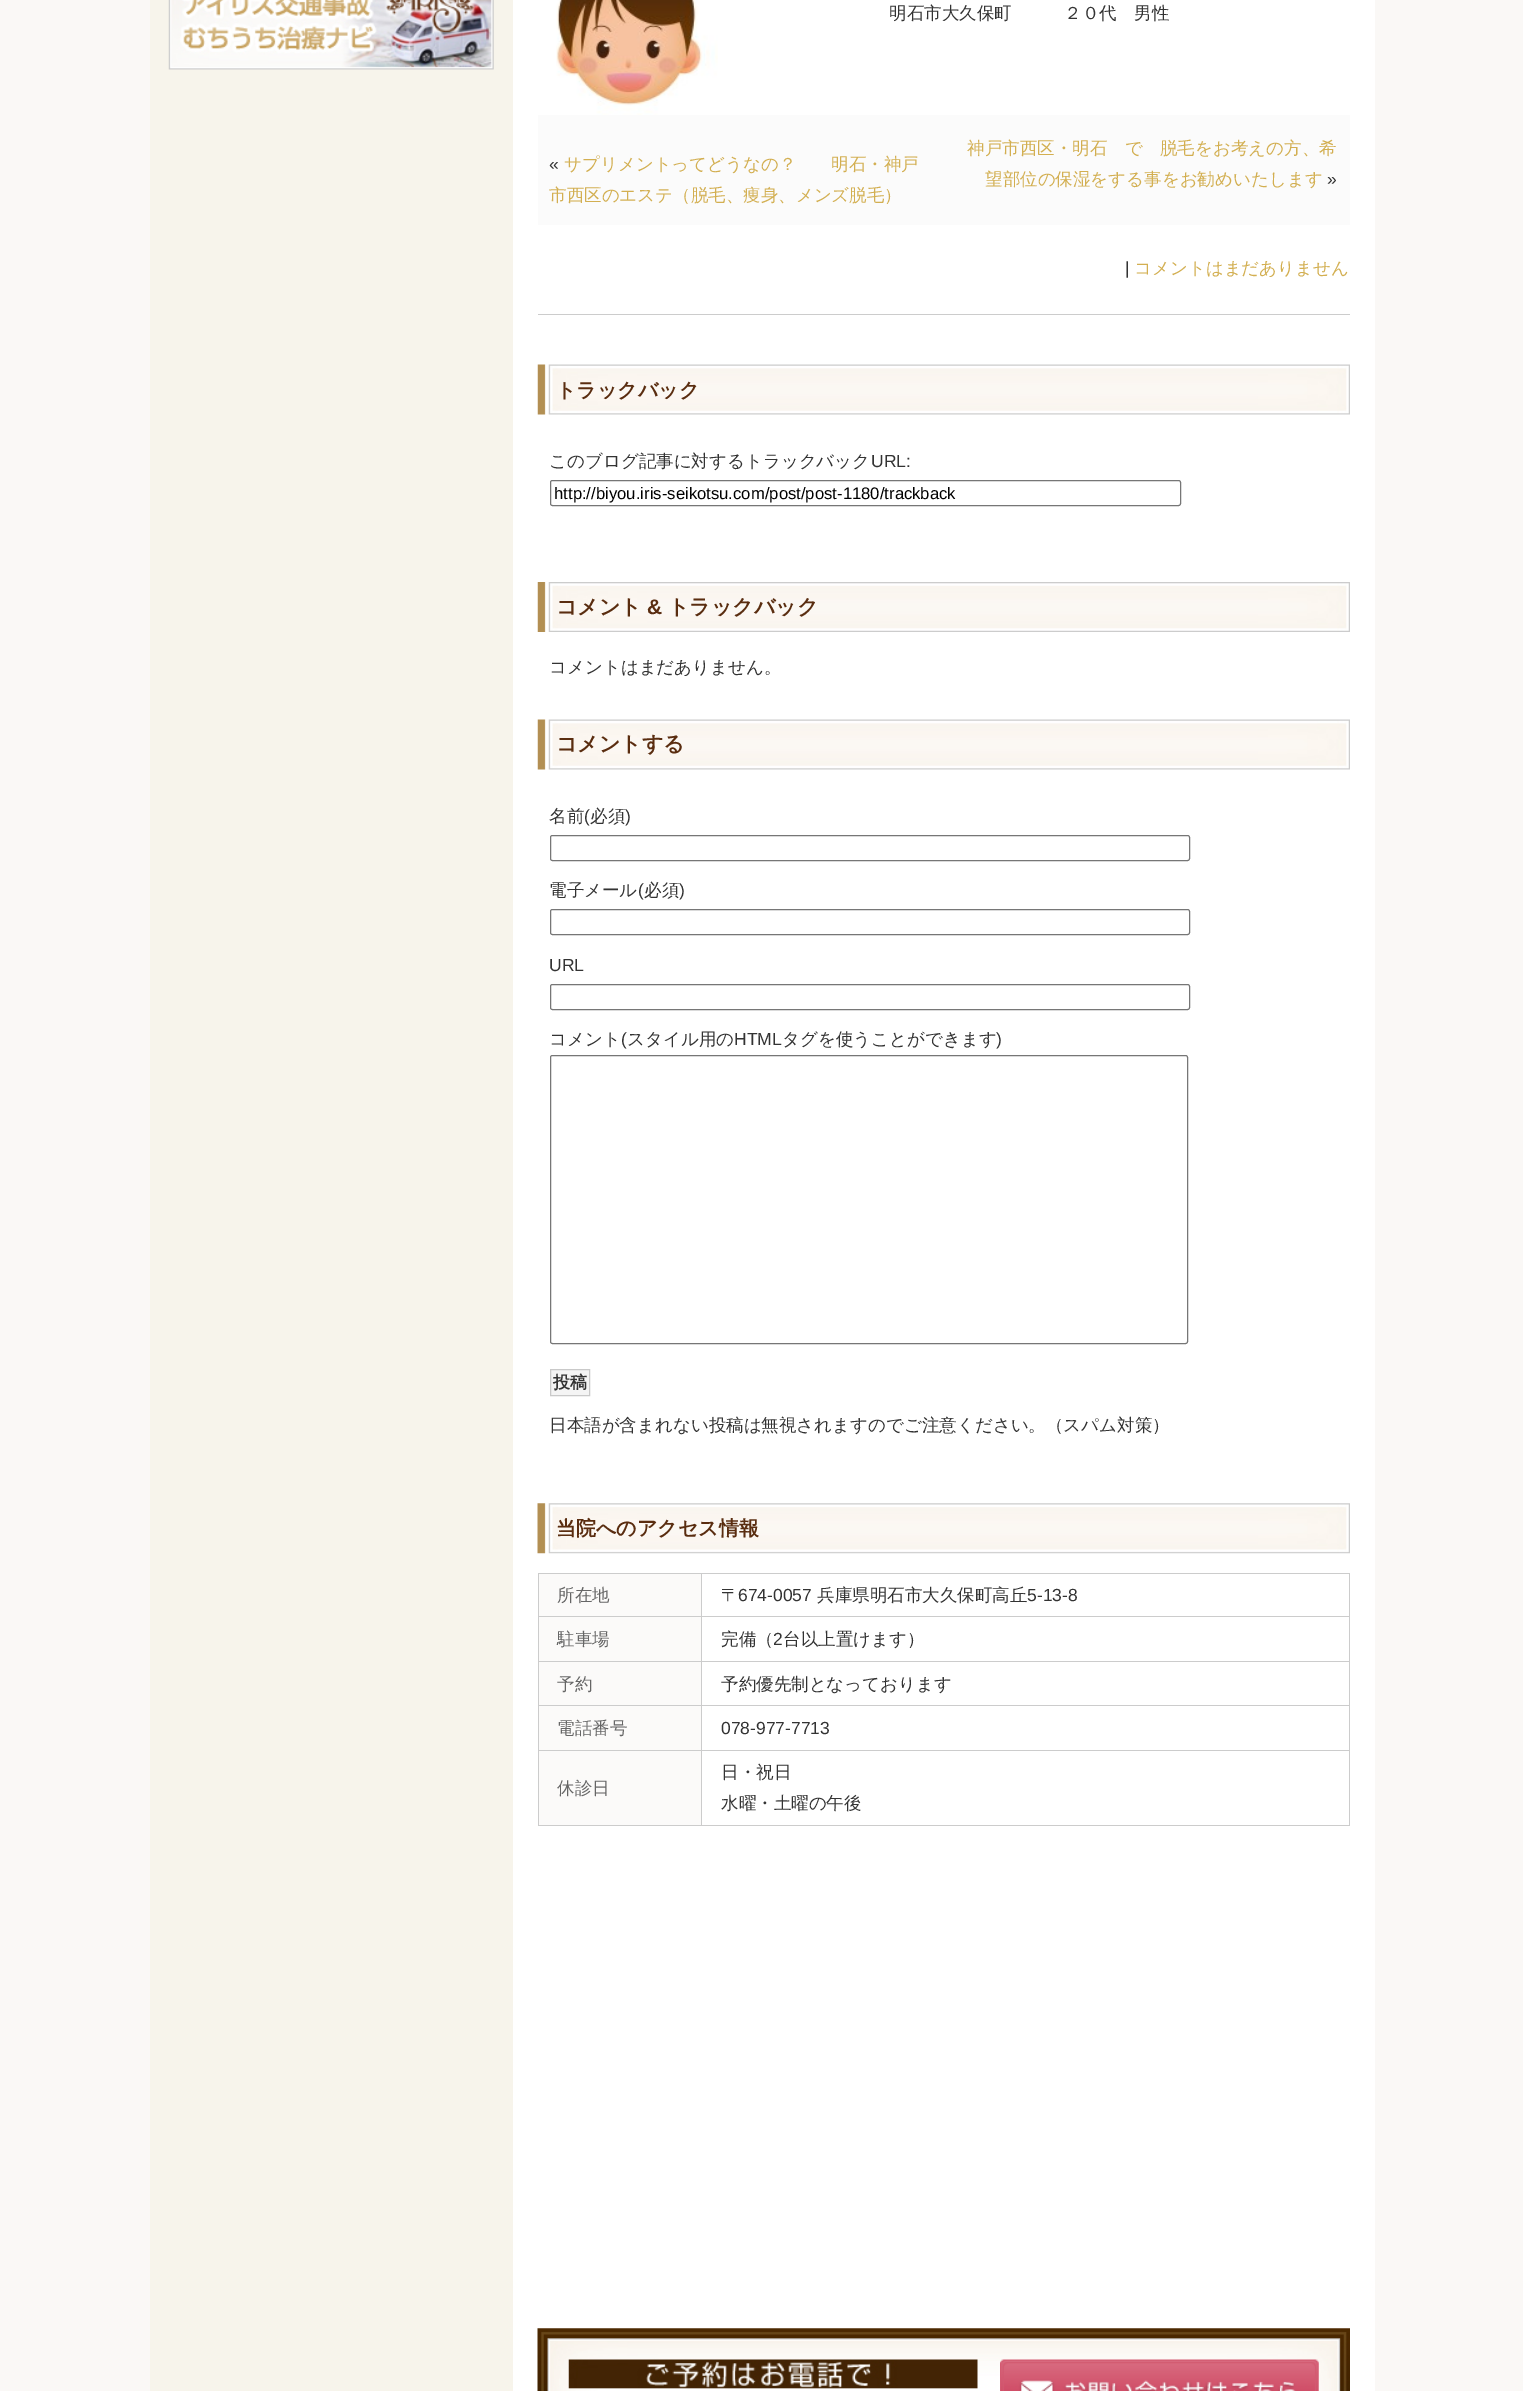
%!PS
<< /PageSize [1523 2391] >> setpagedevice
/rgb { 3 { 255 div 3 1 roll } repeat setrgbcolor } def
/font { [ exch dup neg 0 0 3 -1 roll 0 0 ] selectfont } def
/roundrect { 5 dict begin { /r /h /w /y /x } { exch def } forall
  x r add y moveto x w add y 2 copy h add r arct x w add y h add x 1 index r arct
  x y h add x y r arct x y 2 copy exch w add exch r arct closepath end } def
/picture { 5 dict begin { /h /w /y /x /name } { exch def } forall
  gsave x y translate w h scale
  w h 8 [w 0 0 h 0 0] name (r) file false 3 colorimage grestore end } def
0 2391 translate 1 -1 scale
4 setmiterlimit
250 248 246 rgb
0 0 1523 2391 rectfill
255 255 255 rgb
513 0 862 2391 rectfill
247 244 235 rgb
150 0 363 2391 rectfill
(img/1.rgb) 168 0 326 70 picture
204 204 204 rgb
538 314 812 1 rectfill
(img/2.rgb) 556 0 162 115 picture
251 251 251 rgb
538 115 812 110 rectfill
(img/3.rgb) 537 364 813 51 picture
118 118 118 rgb
550.5 480.5 630 25 2 roundrect stroke
(img/4.rgb) 537 582 813 50 picture
(img/3.rgb) 537 719 813 51 picture
550.5 835.5 639 25 2 roundrect stroke
550.5 909.5 639 25 2 roundrect stroke
550.5 984.5 639 25 2 roundrect stroke
550.5 1055.5 637 288 2 roundrect stroke
244 244 244 rgb
550.5 1369.5 moveto 589.5 1369.5 lineto 589.5 1395.5 lineto 550.5 1395.5 lineto closepath gsave fill grestore
201 201 201 rgb
stroke
(img/5.rgb) 537 1503 813 51 picture
[
  [539 1574 162 87 251 250 249]
  [701 1573 649 1 204 204 204]
  [701 1616 649 1 204 204 204]
  [701 1661 649 1 204 204 204]
  [701 1705 649 1 204 204 204]
  [701 1750 649 1 204 204 204]
  [1349 1750 1 76 204 204 204]
  [701 1825 649 1 204 204 204]
  [701 1750 1 76 204 204 204]
  [538 1750 165 1 204 204 204]
  [701 1705 1 46 204 204 204]
  [538 1705 165 1 204 204 204]
  [701 1661 1 45 204 204 204]
  [538 1661 165 1 204 204 204]
  [701 1616 1 47 204 204 204]
  [538 1616 165 1 204 204 204]
  [701 1573 1 45 204 204 204]
  [538 1573 165 1 204 204 204]
  [538 1825 165 1 204 204 204]
  [538 1750 1 76 204 204 204]
  [538 1705 1 46 204 204 204]
  [538 1661 1 45 204 204 204]
  [538 1616 1 47 204 204 204]
  [538 1573 1 45 204 204 204]
  [1349 1705 1 46 204 204 204]
  [1349 1661 1 45 204 204 204]
  [1349 1616 1 47 204 204 204]
  [1349 1573 1 45 204 204 204]
  [539 1662 162 43 251 250 249]
  [539 1706 162 44 251 250 249]
  [539 1751 162 74 251 250 249]
] { aload pop rgb rectfill } forall
(img/6.rgb) 537 2328 813 63 picture
(img/7.rgb) 1000 2359 319 32 picture
/WenQuanYiZenHei-Medium 17.5 font
51 51 51 rgb
889 19 moveto (明石市大久保町　　　２０代　男性) show
/LiberationSans-Regular 17.5 font
549 170 moveto («) show
/WenQuanYiZenHei-Medium 17.5 font
211 175 81 rgb
[
  [(サプリメントってどうなの？　　明石・神戸) 564 170]
  [(市西区のエステ（脱毛、痩身、メンズ脱毛）) 549 201]
  [(神戸市西区・明石　で　脱毛をお考えの方、希) 967 154]
  [(望部位の保湿をする事をお勧めいたします) 985 185]
] { aload pop moveto show } forall
/LiberationSans-Regular 17.5 font
51 51 51 rgb
1327 185 moveto (») show
1125 274 moveto (|) show
/WenQuanYiZenHei-Medium 17.5 font
211 175 81 rgb
1134 274 moveto (コメントはまだありません) show
/WenQuanYiZenHei-Bold 20 font
90 45 16 rgb
556 397 moveto (トラックバック) show
/WenQuanYiZenHei-Medium 17.5 font
51 51 51 rgb
549 467 moveto (このブログ記事に対するトラックバック) show
/LiberationSans-Regular 17.5 font
871 467 moveto (URL:) show
/LiberationSans-Regular 16.7 font
0 0 0 rgb
554 499 moveto (http://biyou.iris-seikotsu.com/post/post-1180/trackback) show
/WenQuanYiZenHei-Bold 21 font
90 45 16 rgb
556 614 moveto (コメント) show
/LiberationSans-Bold 21 font
647 614 moveto (&) show
/WenQuanYiZenHei-Bold 21 font
668 614 moveto (トラックバック) show
/WenQuanYiZenHei-Medium 17.5 font
51 51 51 rgb
549 673 moveto (コメントはまだありません。) show
/WenQuanYiZenHei-Bold 21 font
90 45 16 rgb
556 751 moveto (コメントする) show
/WenQuanYiZenHei-Medium 17.5 font
51 51 51 rgb
549 822 moveto (名前) show
/LiberationSans-Regular 17.5 font
584 822 moveto (\() show
/WenQuanYiZenHei-Medium 17.5 font
590 822 moveto (必須) show
/LiberationSans-Regular 17.5 font
625 822 moveto (\)) show
/WenQuanYiZenHei-Medium 17.5 font
549 896 moveto (電子メール) show
/LiberationSans-Regular 17.5 font
638 896 moveto (\() show
/WenQuanYiZenHei-Medium 17.5 font
644 896 moveto (必須) show
/LiberationSans-Regular 17.5 font
679 896 moveto (\)) show
549 971 moveto (URL) show
/WenQuanYiZenHei-Medium 17.5 font
549 1045 moveto (コメント) show
/LiberationSans-Regular 17.5 font
621 1045 moveto (\() show
/WenQuanYiZenHei-Medium 17.5 font
627 1045 moveto (スタイル用の) show
/LiberationSans-Regular 17.5 font
734 1045 moveto (HTML) show
/WenQuanYiZenHei-Medium 17.5 font
782 1045 moveto (タグを使うことができます) show
/LiberationSans-Regular 17.5 font
996 1045 moveto (\)) show
/WenQuanYiZenHei-Bold 17 font
553 1388 moveto (投稿) show
/WenQuanYiZenHei-Medium 17.5 font
549 1431 moveto (日本語が含まれない投稿は無視されますのでご注意ください。（スパム対策）) show
/WenQuanYiZenHei-Bold 20 font
90 45 16 rgb
556 1535 moveto (当院へのアクセス情報) show
/WenQuanYiZenHei-Medium 17.5 font
102 102 102 rgb
557 1601 moveto (所在地) show
51 51 51 rgb
721 1601 moveto (〒) show
/LiberationSans-Regular 17.5 font
738 1601 moveto (674-0057) show
/WenQuanYiZenHei-Medium 17.5 font
817 1601 moveto (兵庫県明石市大久保町高丘) show
/LiberationSans-Regular 17.5 font
1027 1601 moveto (5-13-8) show
/WenQuanYiZenHei-Medium 17.5 font
102 102 102 rgb
557 1645 moveto (駐車場) show
51 51 51 rgb
721 1645 moveto (完備（) show
/LiberationSans-Regular 17.5 font
773 1645 moveto (2) show
/WenQuanYiZenHei-Medium 17.5 font
783 1645 moveto (台以上置けます）) show
102 102 102 rgb
557 1690 moveto (予約) show
51 51 51 rgb
721 1690 moveto (予約優先制となっております) show
102 102 102 rgb
557 1734 moveto (電話番号) show
/LiberationSans-Regular 17.5 font
51 51 51 rgb
721 1734 moveto (078-977-7713) show
/WenQuanYiZenHei-Medium 17.5 font
102 102 102 rgb
557 1794 moveto (休診日) show
51 51 51 rgb
721 1778 moveto (日・祝日) show
721 1809 moveto (水曜・土曜の午後) show
showpage
